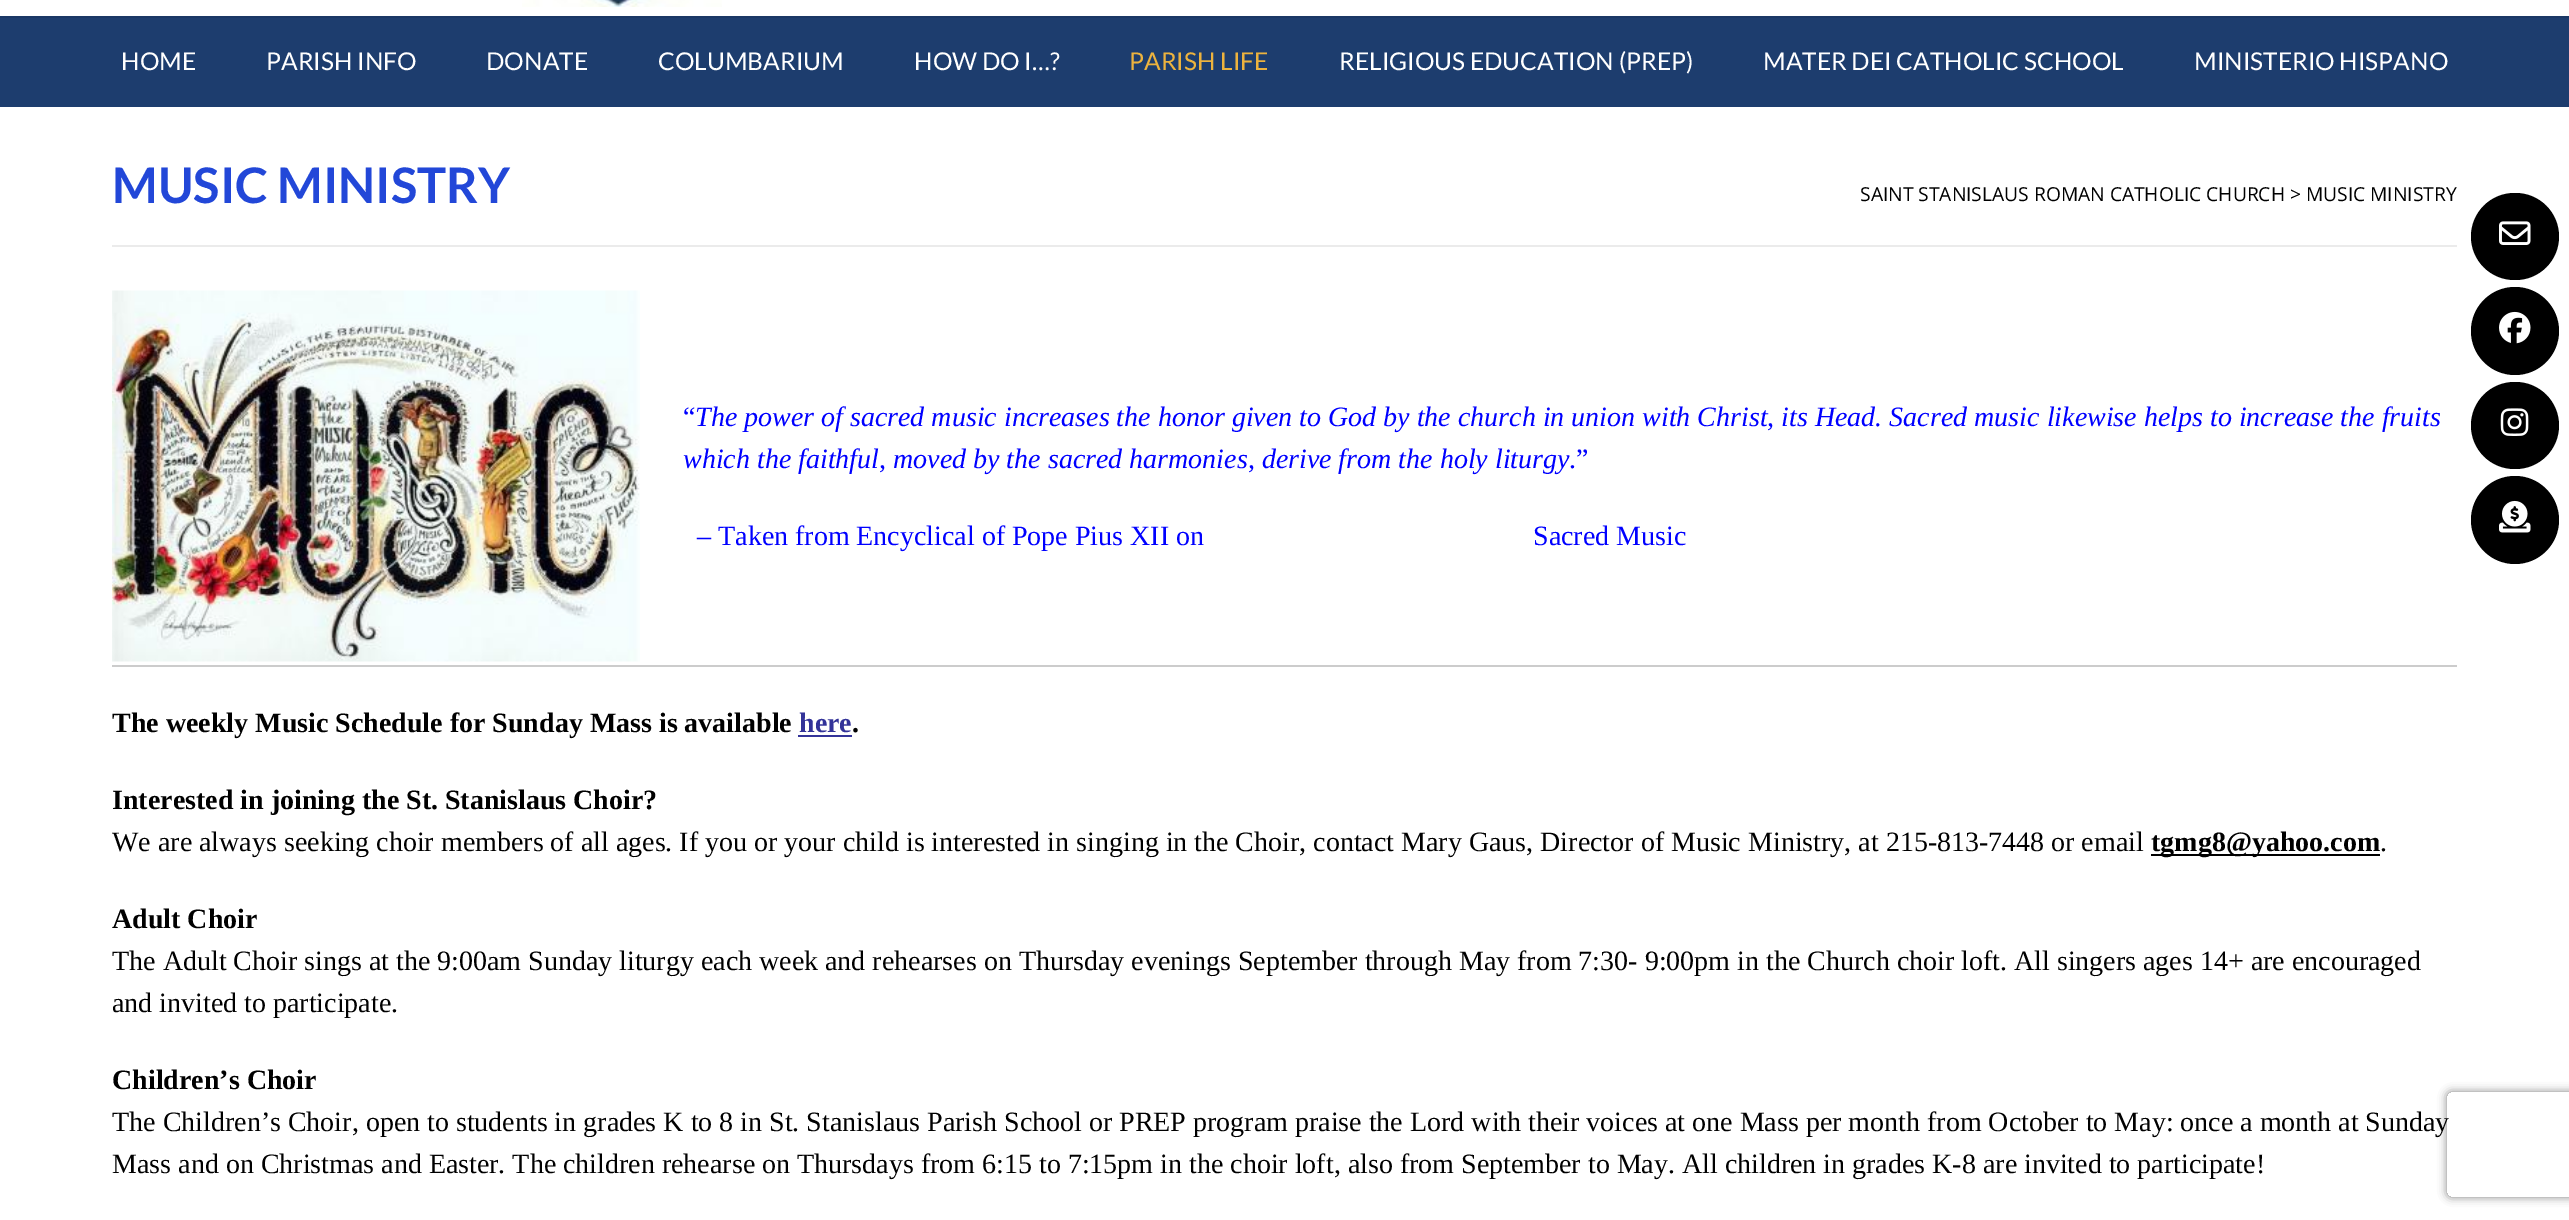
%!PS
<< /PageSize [2569 1220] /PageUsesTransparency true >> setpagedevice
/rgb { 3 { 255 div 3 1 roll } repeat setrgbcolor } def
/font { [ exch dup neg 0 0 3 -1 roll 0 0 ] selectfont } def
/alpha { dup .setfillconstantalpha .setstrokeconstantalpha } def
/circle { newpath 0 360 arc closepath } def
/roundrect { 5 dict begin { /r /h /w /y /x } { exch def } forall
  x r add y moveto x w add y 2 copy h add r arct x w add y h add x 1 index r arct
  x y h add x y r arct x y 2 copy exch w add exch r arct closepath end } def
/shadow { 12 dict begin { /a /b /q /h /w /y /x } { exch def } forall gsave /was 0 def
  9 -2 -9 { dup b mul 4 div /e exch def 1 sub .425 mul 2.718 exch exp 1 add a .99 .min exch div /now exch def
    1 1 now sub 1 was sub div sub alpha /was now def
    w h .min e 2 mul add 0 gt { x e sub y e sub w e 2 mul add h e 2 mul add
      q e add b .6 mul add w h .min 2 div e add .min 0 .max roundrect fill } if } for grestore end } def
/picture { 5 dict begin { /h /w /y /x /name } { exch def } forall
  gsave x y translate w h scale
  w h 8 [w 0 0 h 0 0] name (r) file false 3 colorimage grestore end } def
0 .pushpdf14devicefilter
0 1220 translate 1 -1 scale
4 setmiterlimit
255 255 255 rgb
0 0 2569 1220 rectfill
(img/1.rgb) 522 0 200 7 picture
[
  [0 18 2569 89 29 61 110]
  [0 16 2569 2 27 56 101]
  [112 245 2345 2 235 235 235]
] { aload pop rgb rectfill } forall
(img/2.rgb) 112 290 528 372 picture
[
  [112 665 2345 2 204 204 204]
  [798 735 54 2 51 51 153]
  [2151 854 229 2 0 0 0]
] { aload pop rgb rectfill } forall
2471 193 88 87 43.5 roundrect fill
(img/3.rgb) 2499 221 32 24 picture
2515 331 44 circle fill
(img/4.rgb) 2499 311 32 33 picture
2471 382 88 87 43.5 roundrect fill
(img/5.rgb) 2500 408 29 28 picture
2515 520 44 circle fill
(img/6.rgb) 2499 500 32 33 picture
gsave
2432 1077 moveto 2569 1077 lineto 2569 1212 lineto 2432 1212 lineto closepath 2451 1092 moveto 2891 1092 lineto 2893 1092 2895 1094 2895 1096 curveto 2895 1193 lineto 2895 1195 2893 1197 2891 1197 curveto 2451 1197 lineto 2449 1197 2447 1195 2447 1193 curveto 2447 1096 lineto 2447 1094 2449 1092 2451 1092 curveto closepath eoclip newpath
128 128 128 rgb
2447 1092 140 105 4 4.5 1 shadow
grestore
/Lato-Regular 24.5 font
255 255 255 rgb
[
  [(HOME) 121 70]
  [(PARISH INFO) 266 70]
  [(DONATE) 486 70]
  [(COLUMBARIUM) 658 70]
  [(HOW DO I…?) 914 70]
] { aload pop moveto show } forall
237 179 62 rgb
1129 70 moveto (PARISH LIFE) show
255 255 255 rgb
[
  [(RELIGIOUS EDUCATION \(PREP\)) 1339 70]
  [(MATER DEI CATHOLIC SCHOOL) 1763 70]
  [(MINISTERIO HISPANO) 2194 70]
] { aload pop moveto show } forall
/Lato-Bold 49 font
34 71 216 rgb
112 203 moveto (MUSIC MINISTRY) show
/OpenSans-Regular 19.25 font
0 0 0 rgb
1860 201 moveto (SAINT STANISLAUS ROMAN CATHOLIC CHURCH > MUSIC MINISTRY) show
/LiberationSerif-Regular 28 font
0 0 255 rgb
683 426 moveto (“) show
/LiberationSerif-Italic 28 font
695 426 moveto (The power of sacred music increases the honor given to God by the church in union with Christ, its Head. Sacred music likewise helps to increase the fruits) show
683 468 moveto (which the faithful, moved by the sacred harmonies, derive from the holy liturgy) show
/LiberationSerif-Regular 28 font
1569 468 moveto (.”) show
697 545 moveto (– Taken from Encyclical of Pope Pius XII on                                               Sacred Music) show
/LiberationSerif-Bold 28 font
0 0 0 rgb
112 732 moveto (The weekly Music Schedule for Sunday Mass is available) show
51 51 153 rgb
799 732 moveto (here) show
0 0 0 rgb
852 732 moveto (.) show
112 809 moveto (Interested in joining the St. Stanislaus Choir?) show
/LiberationSerif-Regular 28 font
112 851 moveto (We are always seeking choir members of all ages. If you or your child is interested in singing in the Choir, contact Mary Gaus, Director of Music Ministry, at 215-813-7448 or email) show
/LiberationSerif-Bold 28 font
2151 851 moveto (tgmg8@yahoo.com) show
/LiberationSerif-Regular 28 font
2380 851 moveto (.) show
/LiberationSerif-Bold 28 font
112 928 moveto (Adult Choir) show
/LiberationSerif-Regular 28 font
112 970 moveto (The Adult Choir sings at the 9:00am Sunday liturgy each week and rehearses on Thursday evenings September through May from 7:30- 9:00pm in the Church choir loft. All singers ages 14+ are encouraged) show
112 1012 moveto (and invited to participate.) show
/LiberationSerif-Bold 28 font
112 1089 moveto (Children’s Choir) show
/LiberationSerif-Regular 28 font
112 1131 moveto (The Children’s Choir, open to students in grades K to 8 in St. Stanislaus Parish School or PREP program praise the Lord with their voices at one Mass per month from October to May: once a month at Sunday) show
112 1173 moveto (Mass and on Christmas and Easter. The children rehearse on Thursdays from 6:15 to 7:15pm in the choir loft, also from September to May. All children in grades K-8 are invited to participate!) show
.poppdf14devicefilter showpage
